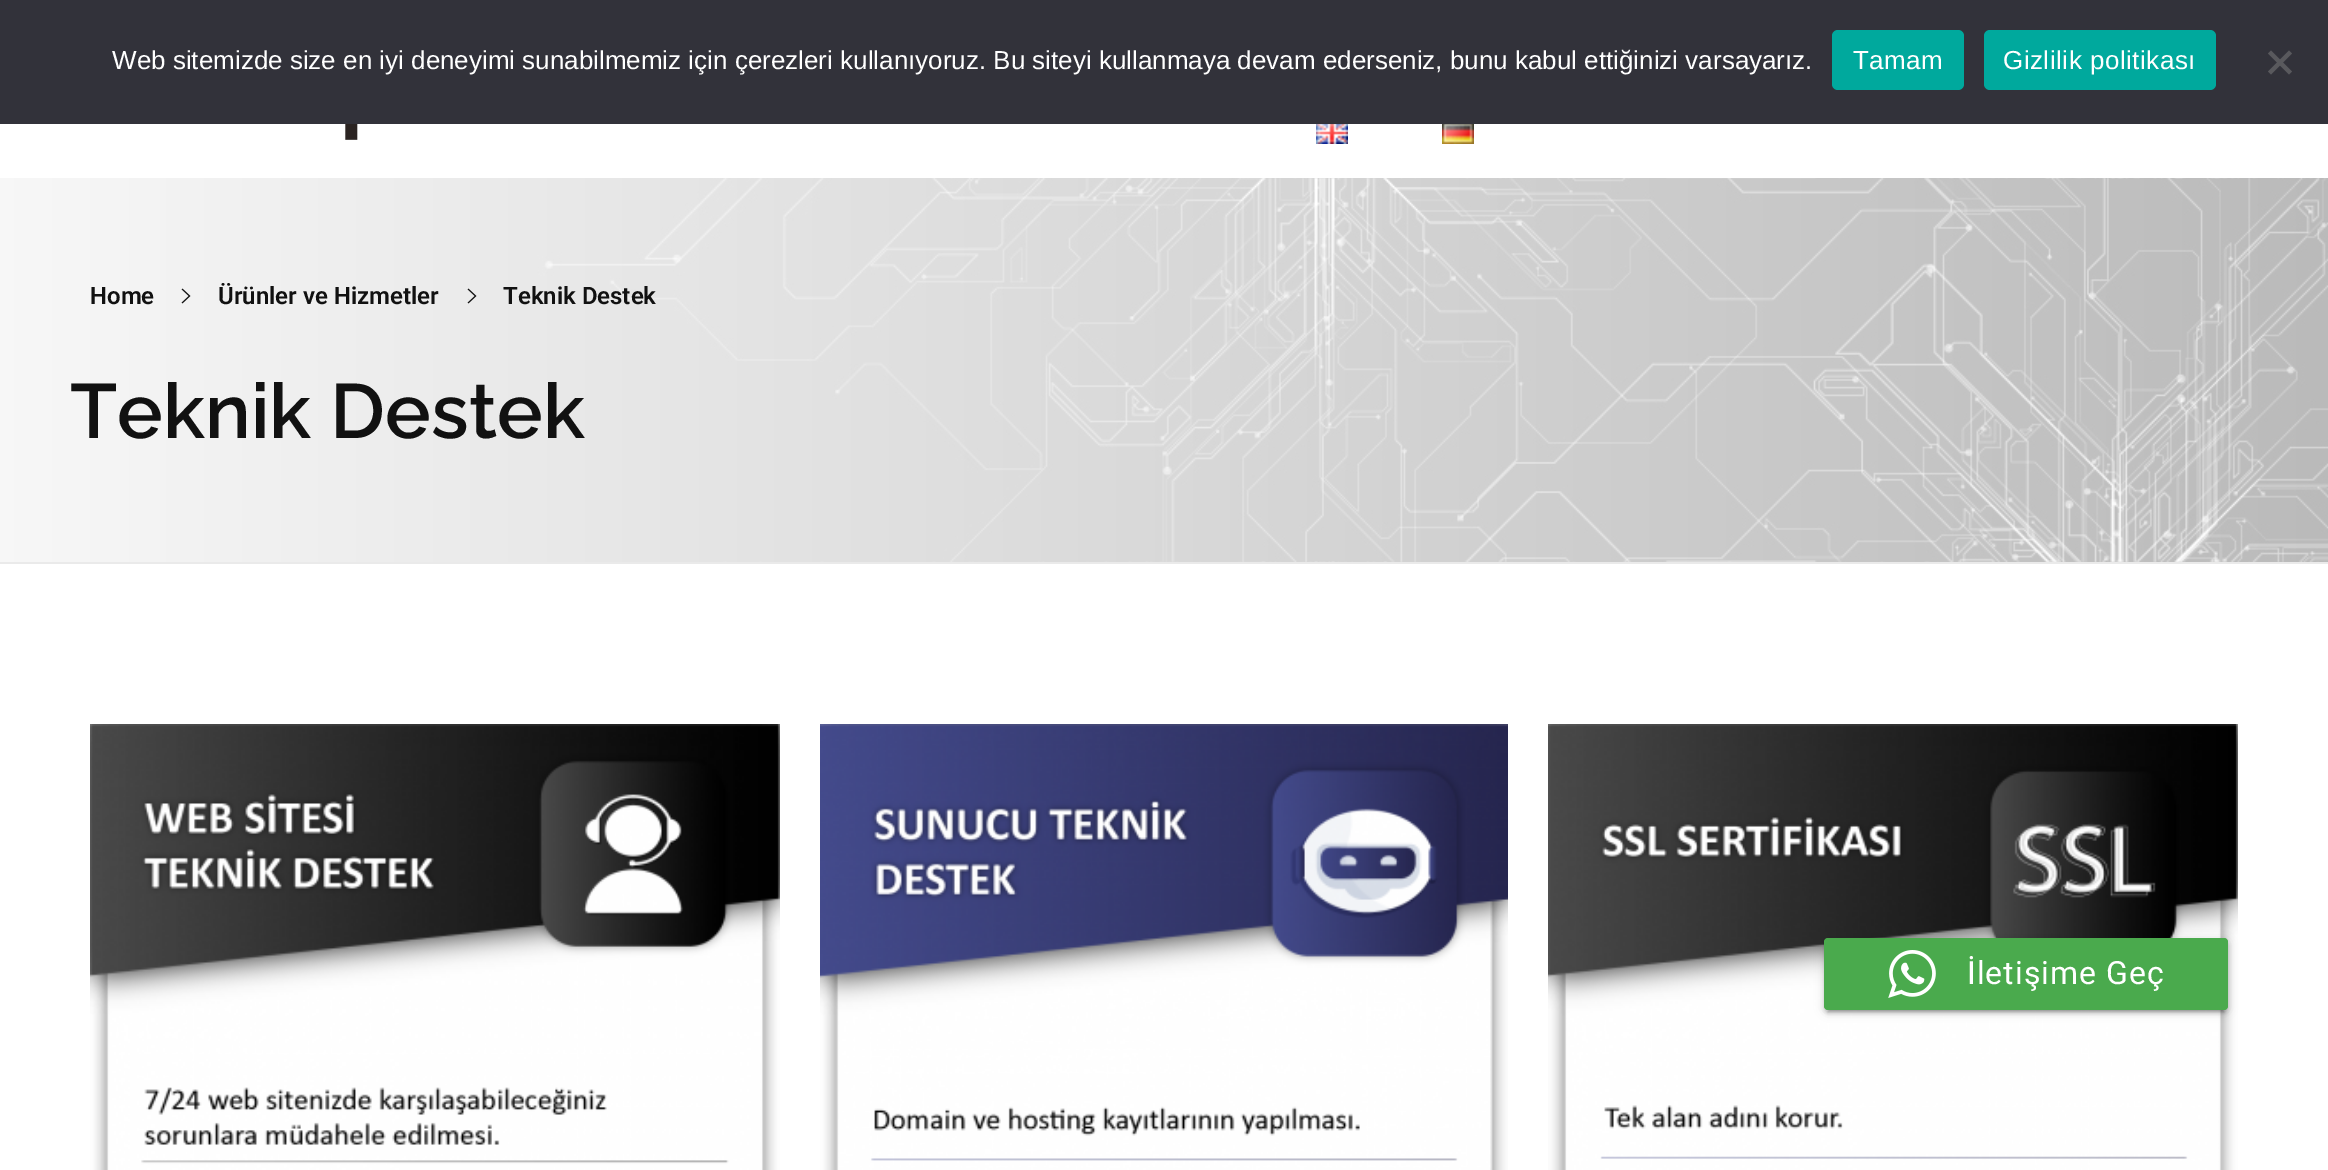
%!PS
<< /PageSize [2328 1170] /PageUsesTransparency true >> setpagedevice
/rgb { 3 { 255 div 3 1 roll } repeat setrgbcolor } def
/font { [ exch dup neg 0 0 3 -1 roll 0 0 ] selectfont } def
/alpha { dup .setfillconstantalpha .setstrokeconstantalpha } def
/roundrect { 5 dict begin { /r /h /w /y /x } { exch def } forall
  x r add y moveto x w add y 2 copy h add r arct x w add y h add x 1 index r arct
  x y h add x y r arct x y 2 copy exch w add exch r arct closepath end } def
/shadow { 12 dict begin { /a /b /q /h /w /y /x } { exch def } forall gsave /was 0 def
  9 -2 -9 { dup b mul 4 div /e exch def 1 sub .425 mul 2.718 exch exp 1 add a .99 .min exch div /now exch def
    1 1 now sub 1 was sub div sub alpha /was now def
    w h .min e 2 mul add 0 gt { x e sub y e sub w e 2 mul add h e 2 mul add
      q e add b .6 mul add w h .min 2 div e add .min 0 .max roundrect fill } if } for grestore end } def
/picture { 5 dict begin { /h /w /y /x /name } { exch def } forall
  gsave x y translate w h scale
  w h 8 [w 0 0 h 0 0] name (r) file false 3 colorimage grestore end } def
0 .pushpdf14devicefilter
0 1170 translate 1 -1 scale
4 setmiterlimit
255 255 255 rgb
0 0 2328 1170 rectfill
50 50 58 rgb
0 0 2328 124 rectfill
0 169 157 rgb
1832 30 132 60 6 roundrect fill
1984 30 232 60 6 roundrect fill
89 89 93 rgb
2289 50.5 moveto 2292 53.5 lineto 2271 74.5 lineto 2268 71.5 lineto closepath fill
2268 53.5 moveto 2271 50.5 lineto 2292 71.5 lineto 2289 74.5 lineto closepath fill
(img/1.rgb) 345 124 13 16 picture
(img/2.rgb) 1316 124 32 20 picture
(img/3.rgb) 1442 124 32 20 picture
(img/4.rgb) 0 178 2328 384 picture
234 234 234 rgb
0 562 2328 2 rectfill
(img/5.rgb) 181 288 10 16 picture
(img/6.rgb) 467 288 10 16 picture
(img/7.rgb) 90 724 690 446 picture
(img/8.rgb) 820 724 688 446 picture
(img/9.rgb) 1548 724 690 446 picture
0 0 0 rgb
1828 948 396 64 0 1 0.2 shadow
1824 940 404 72 4 5 0.12 shadow
1824 942 404 72 4 2 0.14 shadow
74 170 77 rgb
1824 938 404 72 4 roundrect fill
(img/10.rgb) 1888 950 48 48 picture
/LiberationSans-Regular 26 font
255 255 255 rgb
112 69 moveto (Web sitemizde size en iyi deneyimi sunabilmemiz için çerezleri kullanıyoruz. Bu siteyi kullanmaya devam ederseniz, bunu kabul ettiğinizi varsayarız.) show
1853 69 moveto 0.5 0 (Tamam) ashow
2003 69 moveto 0.5 0 (Gizlilik politikası) ashow
/Roboto-SemiBold 24 font
17 17 17 rgb
[
  [(Home) 90 304]
  [(Ürünler ve Hizmetler) 218 304]
  [(Teknik Destek) 503 304]
] { aload pop moveto show } forall
/Raleway-SemiBold 76.75 font
70 438 moveto (Teknik Destek) show
/Roboto-Regular 32 font
255 255 255 rgb
1967 984 moveto 1 0 (İletişime Geç) ashow
.poppdf14devicefilter showpage
